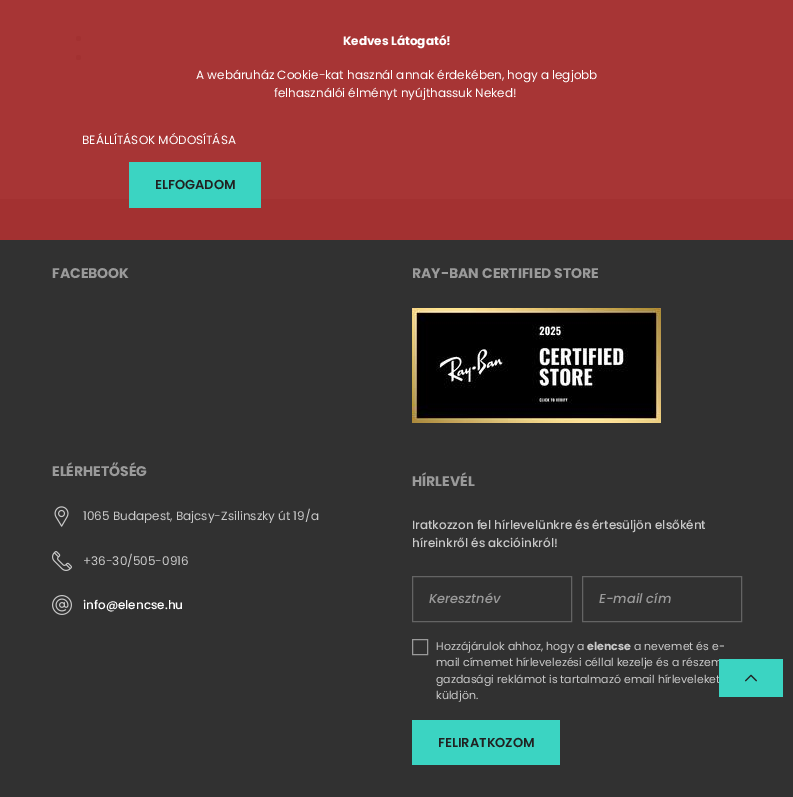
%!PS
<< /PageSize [793 797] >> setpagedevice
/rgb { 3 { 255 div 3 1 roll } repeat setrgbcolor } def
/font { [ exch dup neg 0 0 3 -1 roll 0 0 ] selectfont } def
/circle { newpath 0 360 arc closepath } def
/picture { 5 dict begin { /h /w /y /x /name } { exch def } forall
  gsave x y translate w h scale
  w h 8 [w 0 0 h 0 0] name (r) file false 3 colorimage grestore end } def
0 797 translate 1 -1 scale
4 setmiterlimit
167 53 53 rgb
0 0 793 797 rectfill
163 49 49 rgb
0 199 793 41 rectfill
59 212 194 rgb
129 162 132 46 rectfill
163 49 49 rgb
78.5 38.5 2.5 circle fill
78.5 57.5 2.5 circle fill
49 49 49 rgb
0 240 793 557 rectfill
(img/1.rgb) 54 506 15 21 picture
(img/2.rgb) 52 551 20 20 picture
(img/3.rgb) 52 595 20 20 picture
(img/4.rgb) 412 308 249 115 picture
100 100 100 rgb
412.5 576.5 159 45 rectstroke
582.5 576.5 159 45 rectstroke
154 154 154 rgb
412.5 639.5 15 15 rectstroke
59 212 194 rgb
412 720 148 45 rectfill
/Poppins-Bold 12 font
255 255 255 rgb
343 45 moveto (Kedves Látogató!) show
/Poppins-Regular 12 font
[
  [(A webáruház Cookie-kat használ annak érdekében, hogy a legjobb) 196 79]
  [(felhasználói élményt nyújthassuk Neked!) 274 97]
  [(BEÁLLÍTÁSOK MÓDOSÍTÁSA) 82 144]
] { aload pop moveto show } forall
/Poppins-SemiBold 13 font
33 33 33 rgb
155 189 moveto (ELFOGADOM) show
/Poppins-Bold 14 font
154 154 154 rgb
52 278 moveto (FACEBOOK) show
52 476 moveto (ELÉRHETŐSÉG) show
/Poppins-Regular 12 font
202 202 202 rgb
83 520 moveto (1065 Budapest, Bajcsy-Zsilinszky út 19/a) show
83 565 moveto (+36-30/505-0916) show
/Poppins-Medium 12 font
255 255 255 rgb
83 609 moveto (info@elencse.hu) show
/Poppins-Bold 14 font
154 154 154 rgb
412 278 moveto (RAY-BAN CERTIFIED STORE) show
412 486 moveto (HÍRLEVÉL) show
/Poppins-Medium 12 font
202 202 202 rgb
412 529 moveto (Iratkozzon fel hírlevelünkre és értesüljön elsőként) show
412 547 moveto (híreinkről és akcióinkról!) show
/Poppins-MediumItalic 13 font
154 154 154 rgb
429 603 moveto (Keresztnév) show
599 603 moveto (E-mail cím) show
/Poppins-Regular 11 font
202 202 202 rgb
436 650 moveto (Hozzájárulok ahhoz, hogy a) show
/Poppins-Bold 11 font
587 650 moveto (elencse) show
/Poppins-Regular 11 font
[
  [(a nevemet és e-) 634 650]
  [(mail címemet hírlevelezési céllal kezelje és a részem) 436 666]
  [(gazdasági reklámot is tartalmazó email hírleveleket) 436 683]
  [(küldjön.) 436 699]
] { aload pop moveto show } forall
/Poppins-SemiBold 13 font
33 33 33 rgb
438 747 moveto (FELIRATKOZOM) show
59 212 194 rgb
719 659 64 38 rectfill
(img/5.rgb) 745 674 12 8 picture
showpage
